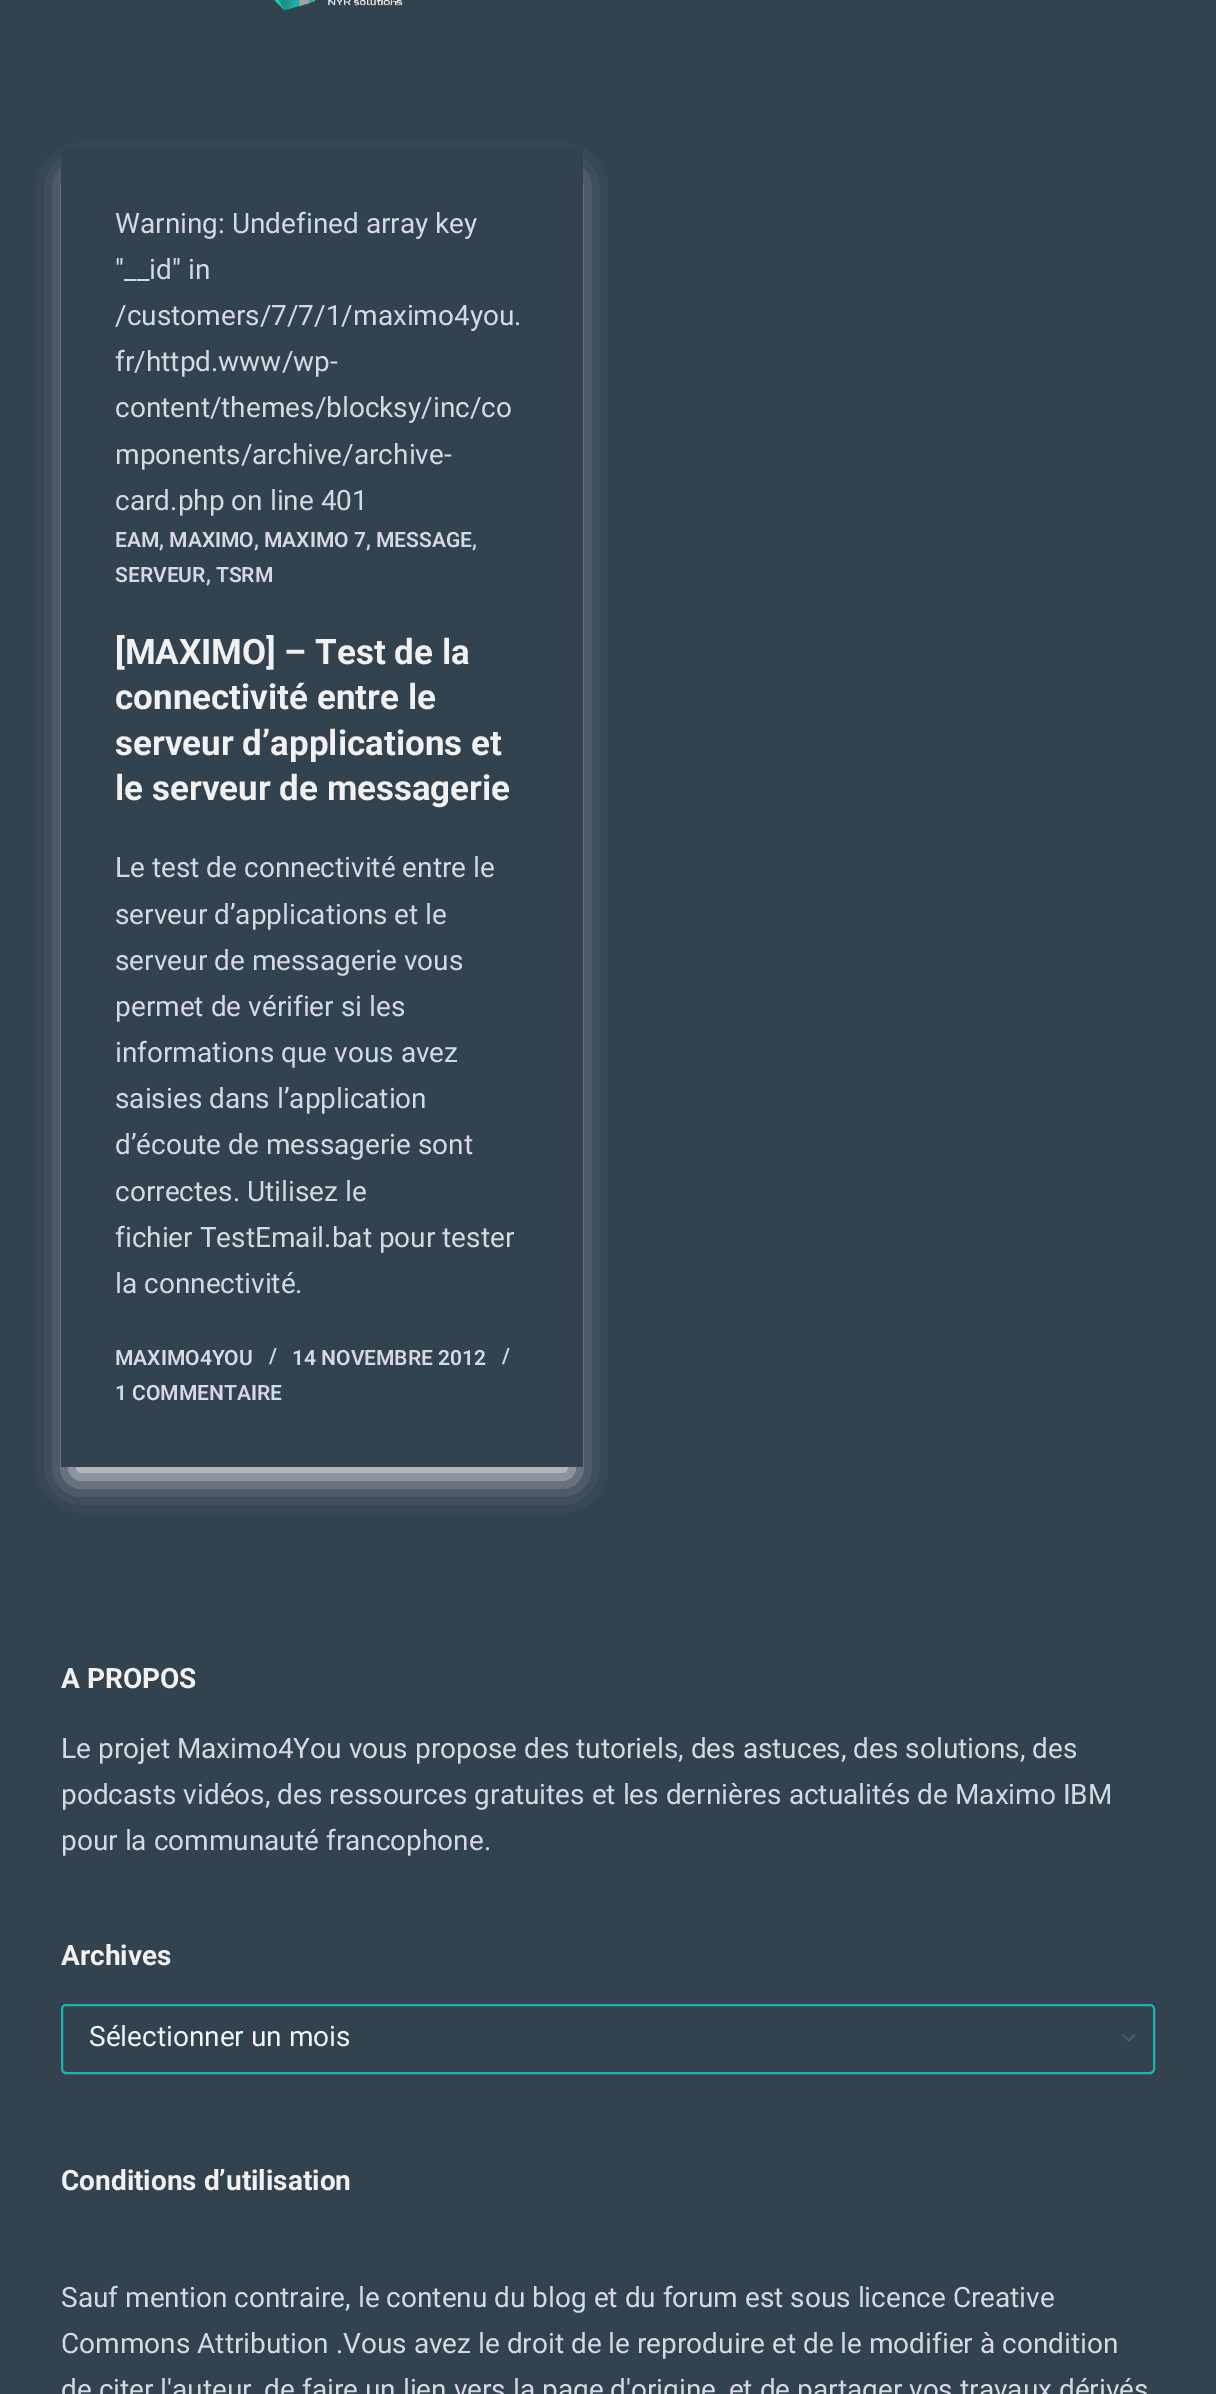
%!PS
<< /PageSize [1216 2394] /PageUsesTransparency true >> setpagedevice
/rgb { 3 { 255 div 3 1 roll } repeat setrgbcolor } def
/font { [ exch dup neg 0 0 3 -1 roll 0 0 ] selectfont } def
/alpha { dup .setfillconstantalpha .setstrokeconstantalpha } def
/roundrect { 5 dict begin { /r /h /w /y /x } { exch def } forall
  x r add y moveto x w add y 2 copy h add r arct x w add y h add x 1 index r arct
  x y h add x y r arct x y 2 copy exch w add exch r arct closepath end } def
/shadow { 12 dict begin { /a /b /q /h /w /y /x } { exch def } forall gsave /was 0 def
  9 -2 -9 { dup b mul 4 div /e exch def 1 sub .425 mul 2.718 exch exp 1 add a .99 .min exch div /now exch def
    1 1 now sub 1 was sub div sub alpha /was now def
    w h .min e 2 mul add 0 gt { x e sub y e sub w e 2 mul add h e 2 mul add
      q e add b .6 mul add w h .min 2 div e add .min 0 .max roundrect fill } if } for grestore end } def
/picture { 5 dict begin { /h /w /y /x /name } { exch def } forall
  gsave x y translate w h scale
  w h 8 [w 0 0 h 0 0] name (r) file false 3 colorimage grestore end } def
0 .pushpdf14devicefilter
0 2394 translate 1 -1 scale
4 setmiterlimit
51 66 79 rgb
0 0 1216 2394 rectfill
(img/1.rgb) 274 0 129 11 picture
231 233 239 rgb
72 179 500 1298 0 16 1 shadow
51 66 79 rgb
61 147 522 1320 rectfill
(img/2.rgb) 1122 2034 14 8 picture
27 180 170 rgb
2 setlinewidth
62 2005 1092 68 4 roundrect stroke
/Roboto-Regular 28 font
213 217 226 rgb
[
  [(Warning: Undefined array key) 115 233]
  [("__id" in) 115 279]
  [(/customers/7/7/1/maximo4you.) 115 325]
  [(fr/httpd.www/wp-) 115 371]
  [(content/themes/blocksy/inc/co) 115 417]
  [(mponents/archive/archive-) 115 464]
  [(card.php on line 401) 115 510]
] { aload pop moveto show } forall
/Roboto-SemiBold 21 font
115 547 moveto (EAM, MAXIMO, MAXIMO 7, MESSAGE,) show
115 582 moveto (SERVEUR, TSRM) show
/Roboto-Bold 35 font
242 241 241 rgb
[
  [([MAXIMO] – Test de la) 115 664]
  [(connectivité entre le) 115 709]
  [(serveur d’applications et) 115 755]
  [(le serveur de messagerie) 115 800]
] { aload pop moveto show } forall
/Roboto-Regular 28 font
213 217 226 rgb
[
  [(Le test de connectivité entre le) 115 877]
  [(serveur d’applications et le) 115 924]
  [(serveur de messagerie vous) 115 970]
  [(permet de vérifier si les) 115 1016]
  [(informations que vous avez) 115 1062]
  [(saisies dans l’application) 115 1108]
  [(d’écoute de messagerie sont) 115 1154]
  [(correctes. Utilisez le) 115 1201]
  [(fichier TestEmail.bat pour tester) 115 1247]
  [(la connectivité.) 115 1293]
] { aload pop moveto show } forall
/Roboto-SemiBold 21 font
[
  [(MAXIMO4YOU) 115 1365]
  [(/) 269 1363]
  [(14 NOVEMBRE 2012) 292 1365]
  [(/) 502 1363]
  [(1 COMMENTAIRE) 115 1400]
] { aload pop moveto show } forall
/Roboto-Bold 28 font
242 241 241 rgb
61 1688 moveto (A PROPOS) show
/Roboto-Regular 28 font
213 217 226 rgb
[
  [(Le projet Maximo4You vous propose des tutoriels, des astuces, des solutions, des) 61 1758]
  [(podcasts vidéos, des ressources gratuites et les dernières actualités de Maximo IBM) 61 1804]
  [(pour la communauté francophone.) 61 1850]
] { aload pop moveto show } forall
/Roboto-Bold 28 font
242 241 241 rgb
61 1965 moveto (Archives) show
/Roboto-Regular 28 font
243 244 247 rgb
89 2046 moveto (Sélectionner un mois) show
/Roboto-Bold 28 font
242 241 241 rgb
61 2190 moveto (Conditions d’utilisation) show
/Roboto-Regular 28 font
213 217 226 rgb
[
  [(Sauf mention contraire, le contenu du blog et du forum est sous licence Creative) 61 2307]
  [(Commons Attribution .Vous avez le droit de le reproduire et de le modifier à condition) 61 2353]
  [(de citer l'auteur, de faire un lien vers la page d'origine, et de partager vos travaux dérivés) 61 2399]
] { aload pop moveto show } forall
.poppdf14devicefilter showpage
